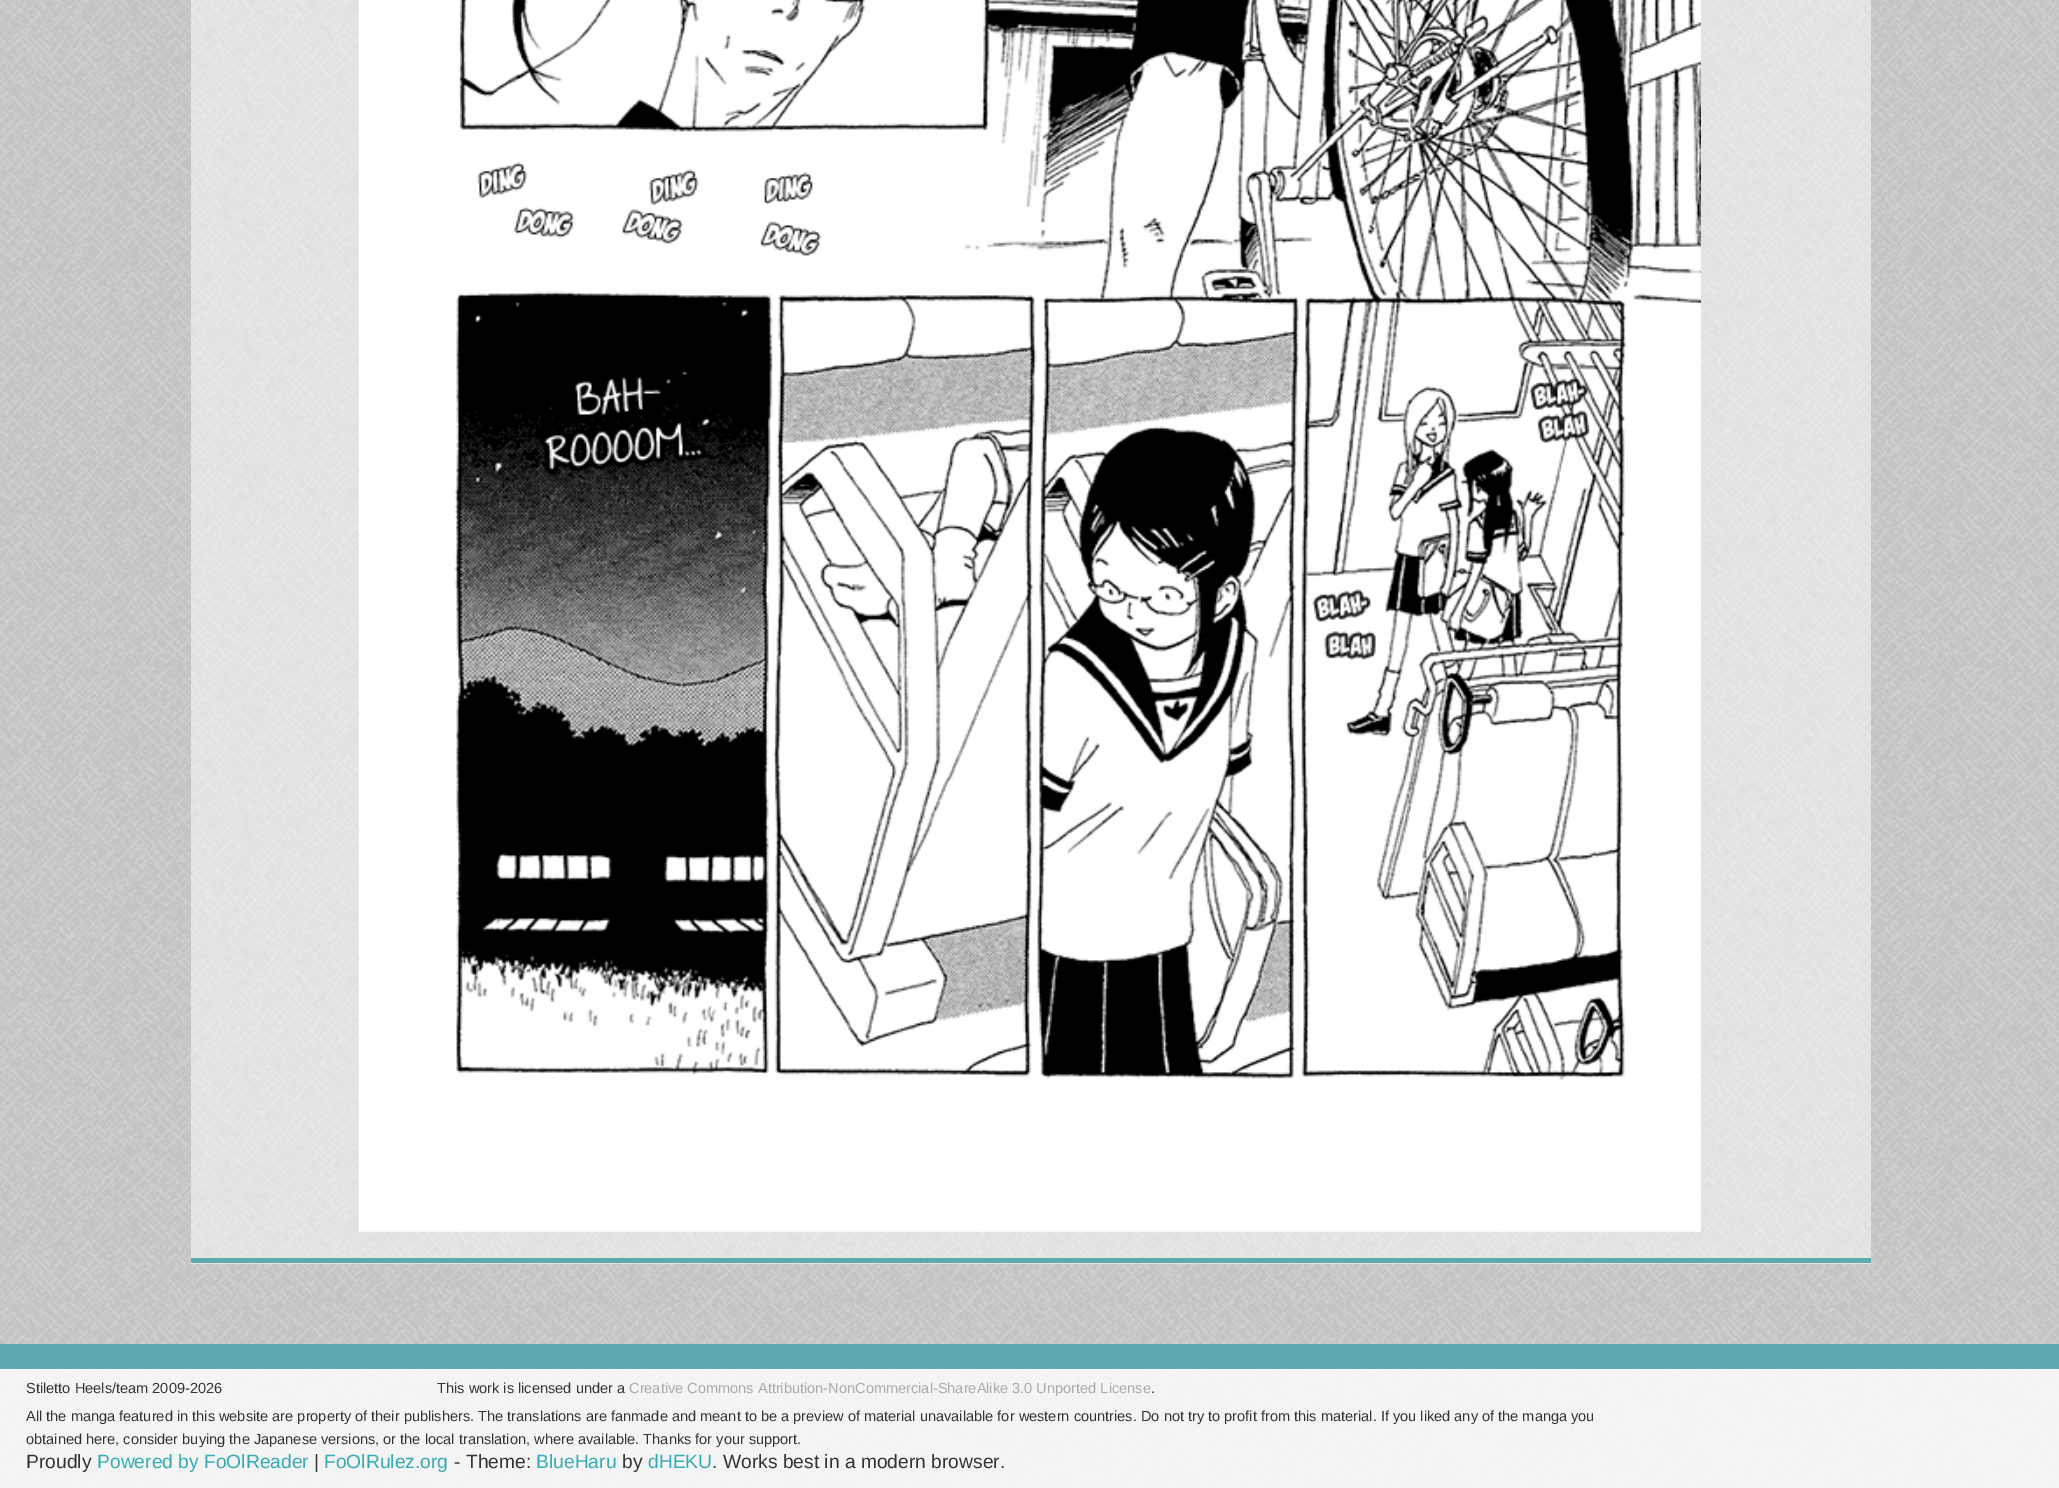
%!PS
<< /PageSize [2059 1488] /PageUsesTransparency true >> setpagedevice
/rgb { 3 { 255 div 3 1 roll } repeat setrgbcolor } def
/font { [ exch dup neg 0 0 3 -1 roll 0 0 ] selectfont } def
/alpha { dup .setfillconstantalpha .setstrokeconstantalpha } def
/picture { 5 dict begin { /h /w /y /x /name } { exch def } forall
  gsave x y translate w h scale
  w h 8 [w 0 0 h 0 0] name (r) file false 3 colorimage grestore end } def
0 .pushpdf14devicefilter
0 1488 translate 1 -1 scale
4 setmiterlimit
255 255 255 rgb
0 0 2059 1488 rectfill
(img/1.rgb) 0 0 2059 1488 picture
0.5 alpha
191 0 1680 1264 rectfill
1 alpha
95 170 176 rgb
191 1258 1680 5 rectfill
(img/2.rgb) 358 0 1343 1232 picture
0 1344 2059 25 rectfill
0.8 alpha
255 255 255 rgb
0 1369 2059 119 rectfill
/LiberationSans-Regular 14.58 font
1 alpha
51 51 51 rgb
26 1393 moveto (Stiletto Heels/team 2009-2026) show
437 1393 moveto (This work is licensed under a) show
170 170 170 rgb
629 1393 moveto (Creative Commons Attribution-NonCommercial-ShareAlike 3.0 Unported License) show
51 51 51 rgb
[
  [(.) 1151 1393]
  [(All the manga featured in this website are property of their publishers. The translations are fanmade and meant to be a preview of material unavailable for western countries. Do not try to profit from this material. If you liked any of the manga you) 26 1421]
  [(obtained here, consider buying the Japanese versions, or the local translation, where available. Thanks for your support.) 26 1444]
] { aload pop moveto show } forall
/LiberationSans-Regular 19.25 font
26 1468 moveto (Proudly) show
55 171 179 rgb
97 1468 moveto (Powered by FoOlReader) show
51 51 51 rgb
314 1468 moveto (|) show
55 171 179 rgb
324 1468 moveto (FoOlRulez.org) show
51 51 51 rgb
454 1468 moveto (- Theme:) show
55 171 179 rgb
536 1468 moveto (BlueHaru) show
51 51 51 rgb
622 1468 moveto (by) show
55 171 179 rgb
648 1468 moveto (dHEKU) show
51 51 51 rgb
712 1468 moveto (. Works best in a modern browser.) show
.poppdf14devicefilter showpage
